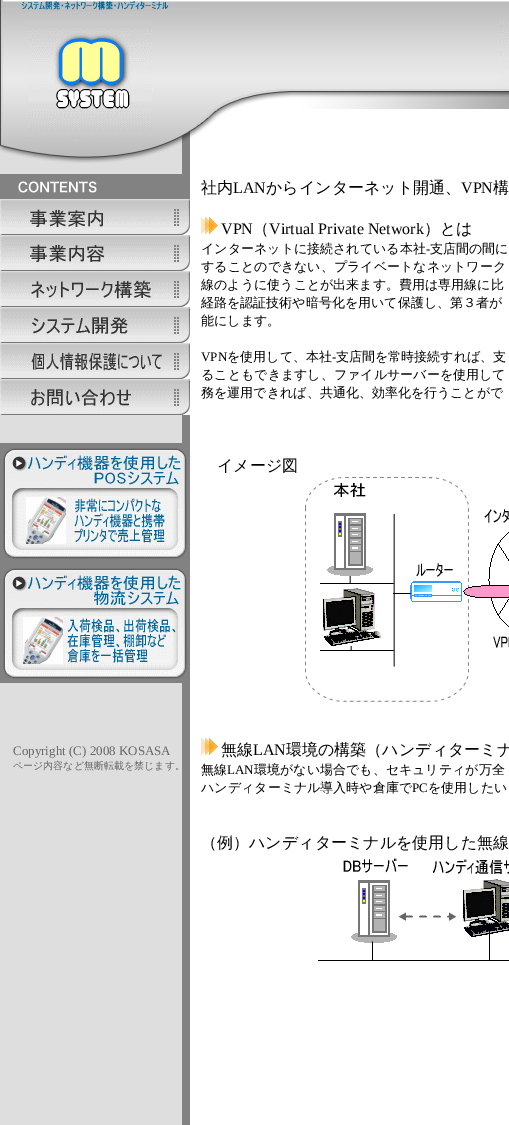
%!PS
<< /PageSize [509 1125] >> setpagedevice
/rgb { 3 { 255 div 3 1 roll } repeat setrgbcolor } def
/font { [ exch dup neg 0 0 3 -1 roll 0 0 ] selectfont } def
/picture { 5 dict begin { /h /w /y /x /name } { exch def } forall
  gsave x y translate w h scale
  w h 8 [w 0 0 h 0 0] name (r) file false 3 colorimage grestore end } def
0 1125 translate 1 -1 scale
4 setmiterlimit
255 255 255 rgb
0 0 509 1125 rectfill
(img/1.rgb) 0 0 509 1125 picture
(img/2.rgb) 0 0 200 12 picture
(img/3.rgb) 200 1 309 11 picture
(img/4.rgb) 0 12 29 128 picture
(img/5.rgb) 29 12 123 128 picture
(img/6.rgb) 152 12 48 128 picture
(img/7.rgb) 200 12 100 79 picture
(img/8.rgb) 300 12 200 79 picture
(img/9.rgb) 500 12 9 79 picture
(img/10.rgb) 200 91 100 18 picture
(img/11.rgb) 300 91 200 18 picture
(img/12.rgb) 500 91 9 18 picture
(img/13.rgb) 200 109 32 23 picture
(img/14.rgb) 0 140 186 59 picture
(img/15.rgb) 0 199 190 36 picture
(img/16.rgb) 0 235 190 36 picture
(img/17.rgb) 0 271 190 36 picture
(img/18.rgb) 0 307 190 36 picture
(img/19.rgb) 0 343 190 36 picture
(img/20.rgb) 0 379 190 36 picture
(img/21.rgb) 0 443 187 120 picture
(img/22.rgb) 0 563 187 120 picture
(img/23.rgb) 201 217 17 17 picture
(img/24.rgb) 305 477 204 225 picture
(img/23.rgb) 201 738 17 17 picture
(img/25.rgb) 318 858 191 103 picture
/LiberationSerif-Regular 13 font
102 102 102 rgb
13 755 moveto (Copyright \(C\) 2008 KOSASA) show
/WenQuanYiZenHei-Medium 10 font
13 769 moveto (ページ内容など無断転載を禁じます。) show
/WenQuanYiZenHei-Medium 16 font
0 0 0 rgb
201 193 moveto (社内) show
/LiberationSerif-Regular 16 font
233 193 moveto (LAN) show
/WenQuanYiZenHei-Medium 16 font
266 193 moveto (からインターネット開通、) show
/LiberationSerif-Regular 16 font
461 193 moveto (VPN) show
/WenQuanYiZenHei-Medium 16 font
493 193 moveto (構) show
/LiberationSerif-Regular 16 font
221 234 moveto (VPN) show
/WenQuanYiZenHei-Medium 16 font
253 234 moveto (（) show
/LiberationSerif-Regular 16 font
269 234 moveto (Virtual Private Network) show
/WenQuanYiZenHei-Medium 16 font
424 234 moveto (）とは) show
/WenQuanYiZenHei-Medium 13 font
201 253 moveto (インターネットに接続されている本社) show
/LiberationSerif-Regular 13 font
426 253 moveto (-) show
/WenQuanYiZenHei-Medium 13 font
[
  [(支店間の間に) 430 253]
  [(することのできない、プライベートなネットワーク) 201 271]
  [(線のように使うことが出来ます。費用は専用線に比) 201 289]
  [(経路を認証技術や暗号化を用いて保護し、第３者が) 201 307]
  [(能にします。) 201 325]
] { aload pop moveto show } forall
/LiberationSerif-Regular 13 font
201 361 moveto (VPN) show
/WenQuanYiZenHei-Medium 13 font
227 361 moveto (を使用して、本社) show
/LiberationSerif-Regular 13 font
332 361 moveto (-) show
/WenQuanYiZenHei-Medium 13 font
[
  [(支店間を常時接続すれば、支) 336 361]
  [(ることもできますし、ファイルサーバーを使用して) 201 379]
  [(務を運用できれば、共通化、効率化を行うことがで) 201 397]
] { aload pop moveto show } forall
/WenQuanYiZenHei-Medium 16 font
217 471 moveto (イメージ図) show
221 755 moveto (無線) show
/LiberationSerif-Regular 16 font
253 755 moveto (LAN) show
/WenQuanYiZenHei-Medium 16 font
286 755 moveto (環境の構築（ハンディターミナ) show
/WenQuanYiZenHei-Medium 13 font
201 774 moveto (無線) show
/LiberationSerif-Regular 13 font
227 774 moveto (LAN) show
/WenQuanYiZenHei-Medium 13 font
254 774 moveto (環境がない場合でも、セキュリティが万全) show
201 792 moveto (ハンディターミナル導入時や倉庫で) show
/LiberationSerif-Regular 13 font
412 792 moveto (PC) show
/WenQuanYiZenHei-Medium 13 font
428 792 moveto (を使用したい) show
/WenQuanYiZenHei-Medium 16 font
201 848 moveto (（例）ハンディターミナルを使用した無線) show
showpage
